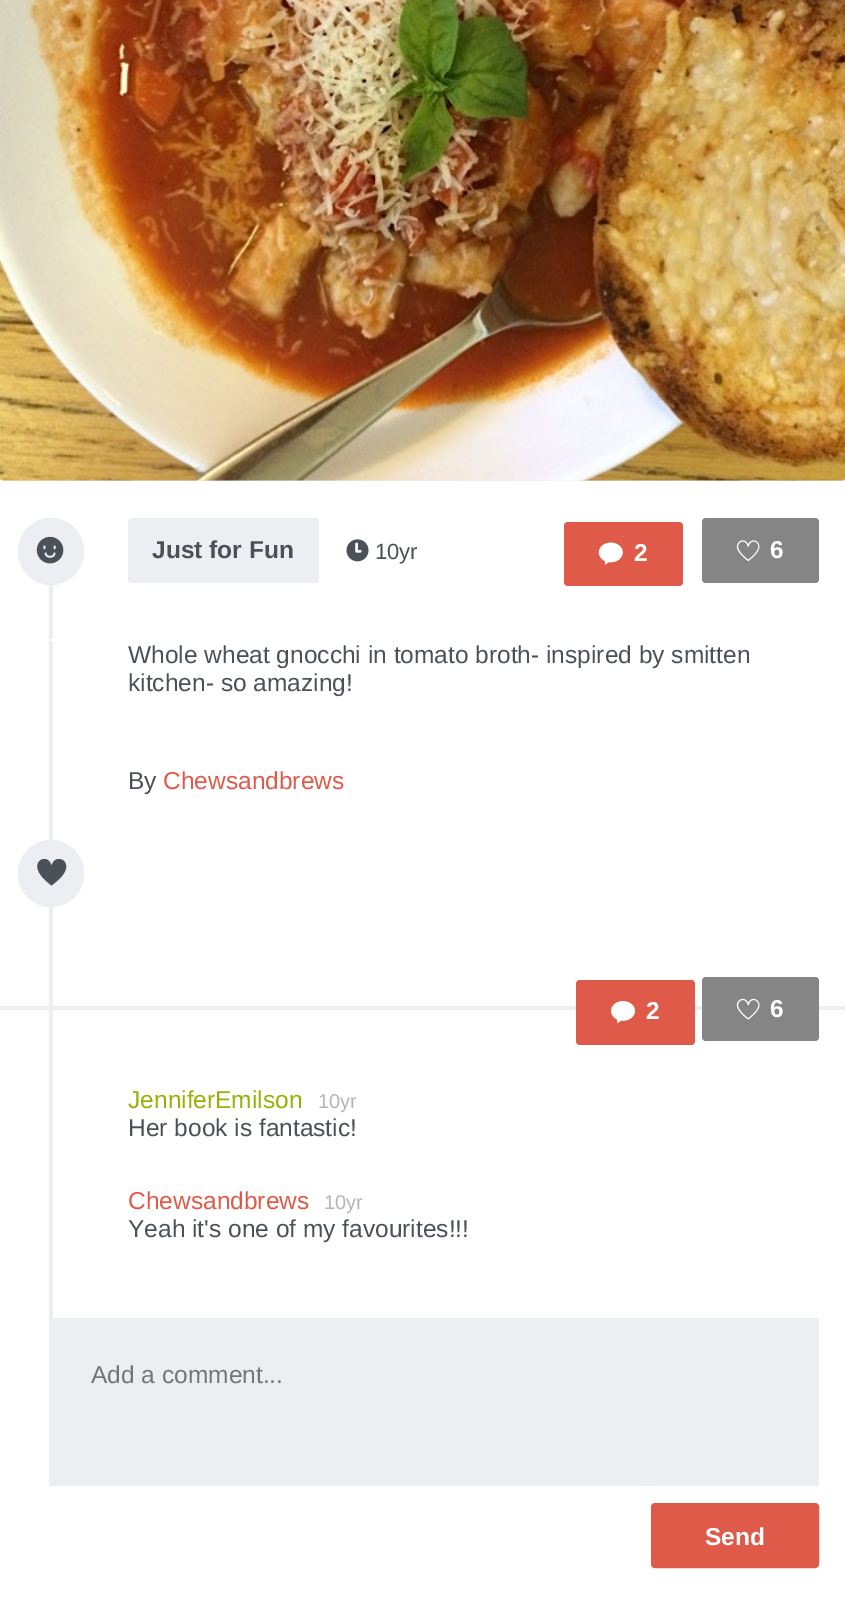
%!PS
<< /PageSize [845 1622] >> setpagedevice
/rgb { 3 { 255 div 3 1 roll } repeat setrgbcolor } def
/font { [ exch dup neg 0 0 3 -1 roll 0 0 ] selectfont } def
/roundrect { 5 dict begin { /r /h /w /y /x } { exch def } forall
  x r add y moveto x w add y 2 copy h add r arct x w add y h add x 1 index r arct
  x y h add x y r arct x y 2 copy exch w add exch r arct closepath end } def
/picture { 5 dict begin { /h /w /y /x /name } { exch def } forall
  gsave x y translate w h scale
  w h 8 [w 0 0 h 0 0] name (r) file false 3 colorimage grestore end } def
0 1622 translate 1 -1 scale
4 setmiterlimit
255 255 255 rgb
0 0 845 1622 rectfill
237 238 242 rgb
0 -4 845 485 4 roundrect fill
(img/1.rgb) 0 0 845 481 picture
49 518 4 121 rectfill
18 518 66 67 33 roundrect fill
(img/2.rgb) 36 536 28 28 picture
128 518 191 65 4 roundrect fill
(img/3.rgb) 346 539 23 23 picture
223 90 72 rgb
564 522 119 64 4 roundrect fill
(img/4.rgb) 598 542 25 23 picture
133 133 133 rgb
702 518 117 65 4 roundrect fill
(img/5.rgb) 736 540 24 21 picture
[
  [49 641 4 106 237 238 242]
  [49 747 4 93 237 238 242]
  [49 840 4 93 237 238 242]
] { aload pop rgb rectfill } forall
18 840 66 67 33 roundrect fill
76 81 87 rgb
51.5 885.5 moveto 56.5 881.5 63.5 876 65.5 870 curveto 69.5 859.5 54.5 853.5 51.5 866 curveto 48.5 853.5 34 859.5 38 870 curveto 40 876 46.5 881.5 51.5 885.5 curveto closepath fill
[
  [49 933 4 73 237 238 242]
  [49 1010 4 308 237 238 242]
  [0 1006 845 4 237 238 242]
] { aload pop rgb rectfill } forall
223 90 72 rgb
576 980 119 65 4 roundrect fill
(img/6.rgb) 611 1001 25 23 picture
133 133 133 rgb
702 977 117 64 4 roundrect fill
(img/7.rgb) 736 998 24 22 picture
237 238 242 rgb
49 1318 770 168 rectfill
223 90 72 rgb
652 1504 166 63 3 roundrect gsave fill grestore
2 setlinewidth
stroke
/LiberationSans-Bold 24.5 font
76 81 87 rgb
152 558 moveto (Just for Fun) show
/LiberationSans-Regular 22 font
375 559 moveto (10yr) show
/LiberationSans-Bold 24.5 font
255 255 255 rgb
634 561 moveto (2) show
770 558 moveto (6) show
/LiberationSans-Regular 24.5 font
76 81 87 rgb
[
  [(Whole wheat gnocchi in tomato broth- inspired by smitten) 128 663]
  [(kitchen- so amazing!) 128 691]
  [(By) 128 789]
] { aload pop moveto show } forall
223 90 72 rgb
163 789 moveto (Chewsandbrews) show
151 176 3 rgb
128 1108 moveto (JenniferEmilson) show
/LiberationSans-Regular 20 font
181 181 181 rgb
318 1108 moveto (10yr) show
/LiberationSans-Regular 24.5 font
76 81 87 rgb
128 1136 moveto (Her book is fantastic!) show
223 90 72 rgb
128 1209 moveto (Chewsandbrews) show
/LiberationSans-Regular 20 font
181 181 181 rgb
324 1209 moveto (10yr) show
/LiberationSans-Regular 24.5 font
76 81 87 rgb
128 1237 moveto (Yeah it's one of my favourites!!!) show
/LiberationSans-Bold 24.5 font
255 255 255 rgb
646 1019 moveto (2) show
770 1017 moveto (6) show
/LiberationSans-Regular 24.5 font
117 117 117 rgb
91 1383 moveto (Add a comment...) show
/LiberationSans-Bold 24.5 font
255 255 255 rgb
705 1545 moveto (Send) show
showpage
